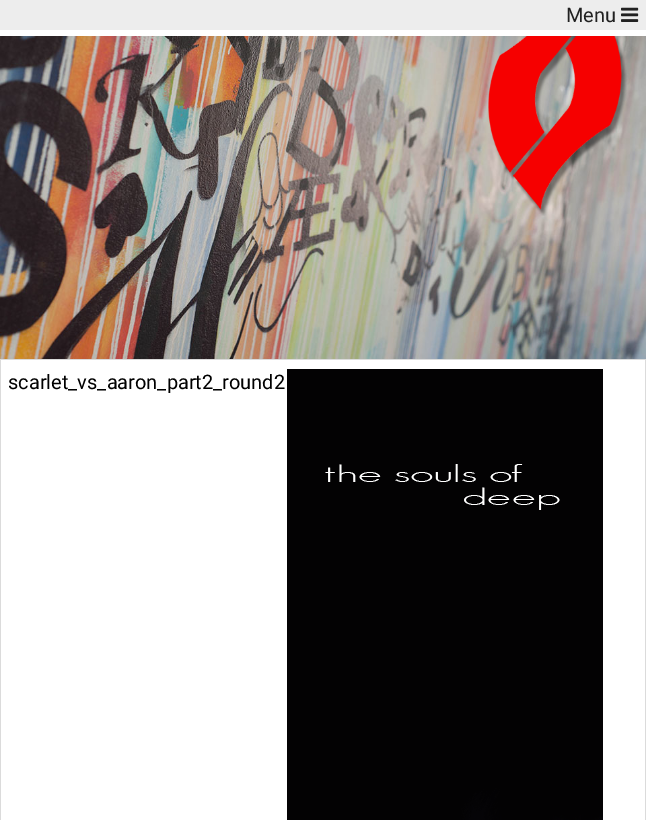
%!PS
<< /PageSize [646 820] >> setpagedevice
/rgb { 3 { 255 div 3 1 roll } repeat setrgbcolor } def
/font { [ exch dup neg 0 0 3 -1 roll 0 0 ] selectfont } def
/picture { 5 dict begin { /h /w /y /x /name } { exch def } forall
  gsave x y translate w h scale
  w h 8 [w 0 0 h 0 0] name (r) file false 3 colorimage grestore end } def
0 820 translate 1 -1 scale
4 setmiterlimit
255 255 255 rgb
0 0 646 820 rectfill
237 237 237 rgb
0 0 646 30 rectfill
(img/1.rgb) 621 7 18 15 picture
(img/2.rgb) 0 36 646 323 picture
(img/3.rgb) 488 36 139 180 picture
219 219 219 rgb
0 359 646 461 rectfill
255 255 255 rgb
1 360 644 460 rectfill
(img/4.rgb) 287 369 316 451 picture
/Roboto-Regular 20 font
33 33 33 rgb
566 22 moveto (Menu) show
0 0 0 rgb
8 389 moveto (scarlet_vs_aaron_part2_round2) show
showpage
